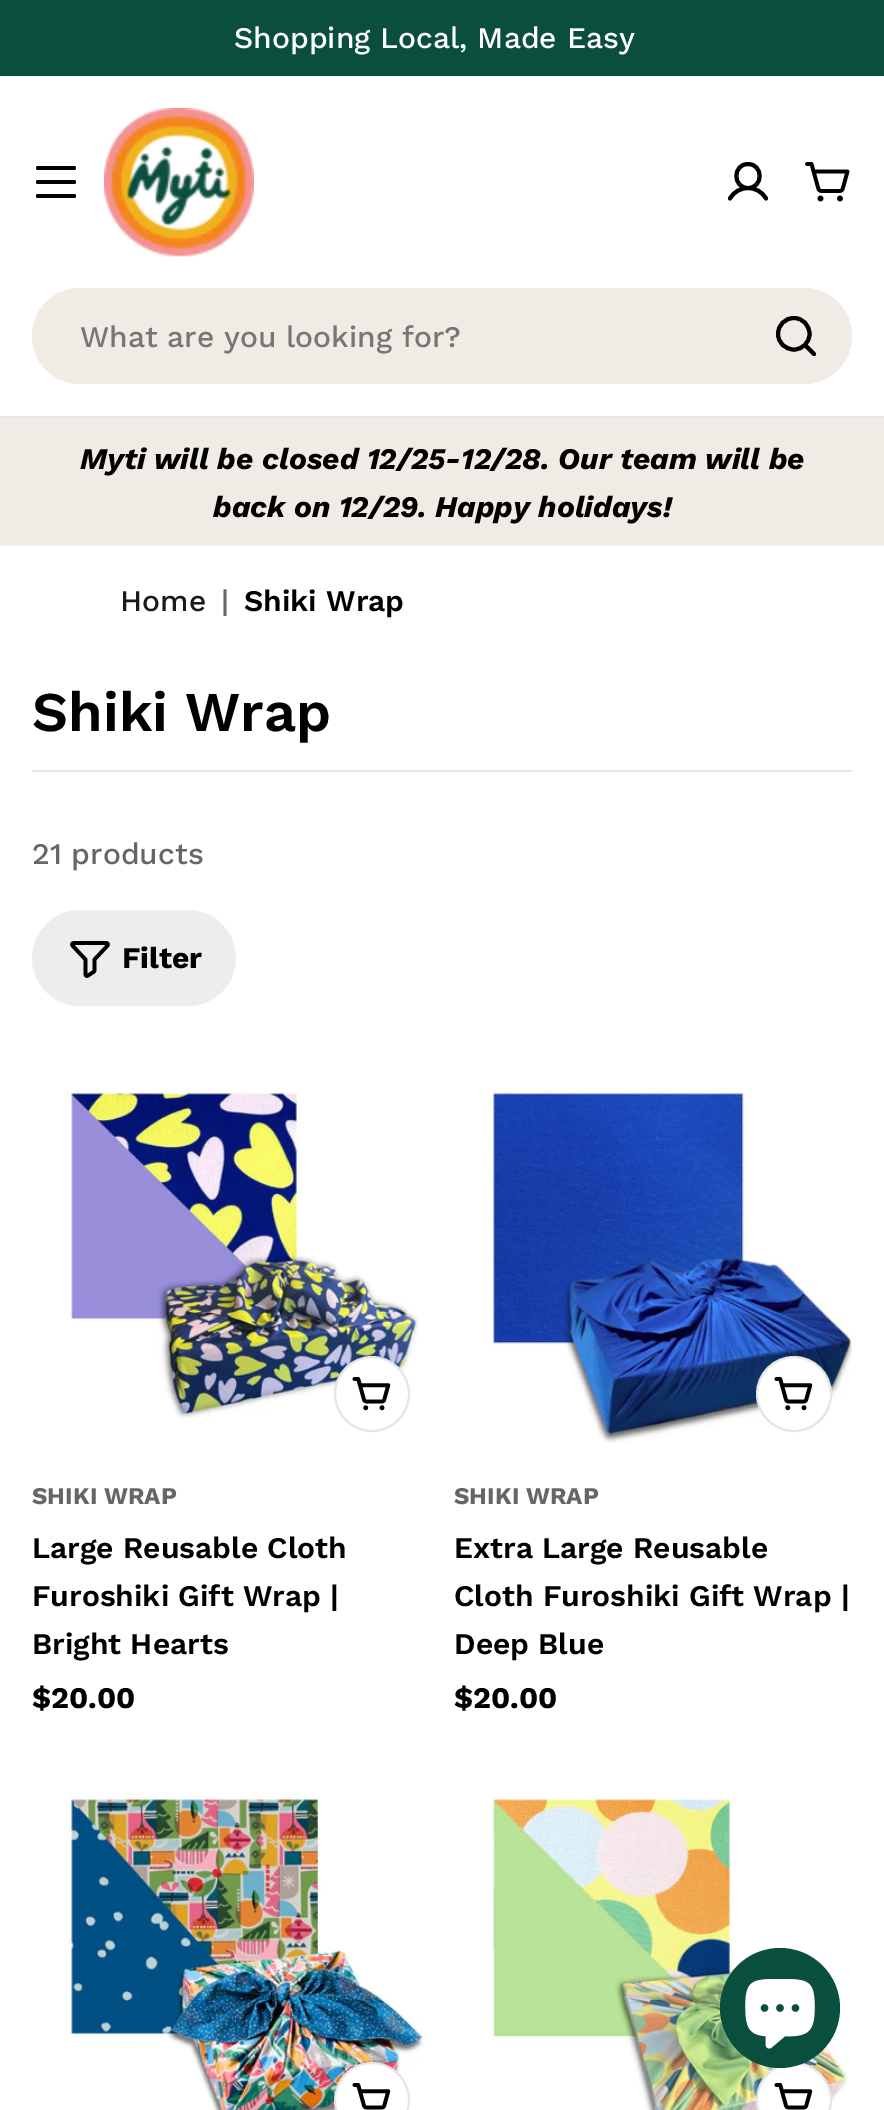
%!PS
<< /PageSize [884 2110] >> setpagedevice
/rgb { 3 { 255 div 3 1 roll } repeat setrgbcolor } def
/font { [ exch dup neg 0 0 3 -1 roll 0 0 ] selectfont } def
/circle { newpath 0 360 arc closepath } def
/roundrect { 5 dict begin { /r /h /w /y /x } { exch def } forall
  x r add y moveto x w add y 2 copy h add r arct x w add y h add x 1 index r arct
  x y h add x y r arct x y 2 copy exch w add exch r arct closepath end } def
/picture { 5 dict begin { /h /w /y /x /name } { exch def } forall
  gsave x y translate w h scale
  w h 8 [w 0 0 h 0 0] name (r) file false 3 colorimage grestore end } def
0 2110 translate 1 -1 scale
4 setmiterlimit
255 255 255 rgb
0 0 884 2110 rectfill
10 79 62 rgb
0 0 884 76 rectfill
0 0 0 rgb
36 180 40 4 2 roundrect fill
36 166 40 4 2 roundrect fill
36 194 40 4 2 roundrect fill
(img/1.rgb) 104 108 150 149 picture
4 setlinewidth
1 setlinecap
1 setlinejoin
748 188 moveto 763.5 188 763.5 164 748 164 curveto 732.5 164 732.5 188 748 188 curveto closepath 730 198.5 moveto 738 184.5 758 184.5 766 198.5 curveto stroke
(img/2.rgb) 805 162 45 40 picture
240 235 228 rgb
32 288 820 96 48 roundrect fill
0 0 0 rgb
794 349.5 moveto 802.5 349.5 809.5 342.5 809.5 334 curveto 809.5 325 802.5 318 794 318 curveto 785 318 778 325 778 334 curveto 778 342.5 785 349.5 794 349.5 curveto closepath 805 345 moveto 814 354 lineto stroke
[
  [0 416 884 2 229 229 229]
  [0 418 884 128 240 235 228]
  [32 770 820 2 229 229 229]
] { aload pop rgb rectfill } forall
237 237 237 rgb
33 911 202 94 47 roundrect gsave fill grestore
2 setlinewidth
0 setlinecap
0 setlinejoin
stroke
(img/3.rgb) 70 941 40 37 picture
(img/4.rgb) 68 1090 351 329 picture
255 255 255 rgb
372 1394 37 circle gsave fill grestore
229 229 229 rgb
stroke
(img/5.rgb) 352 1377 39 34 picture
(img/6.rgb) 491 1091 361 353 picture
255 255 255 rgb
794 1394 37 circle gsave fill grestore
229 229 229 rgb
stroke
(img/5.rgb) 774 1377 39 34 picture
(img/7.rgb) 68 1795 358 315 picture
255 255 255 rgb
372 2100 37 circle gsave fill grestore
229 229 229 rgb
stroke
(img/8.rgb) 352 2083 39 27 picture
(img/9.rgb) 491 1796 357 314 picture
255 255 255 rgb
794 2100 37 circle gsave fill grestore
229 229 229 rgb
stroke
(img/8.rgb) 774 2083 39 27 picture
10 79 62 rgb
780 2008 60 circle fill
(img/10.rgb) 745 1979 70 70 picture
/WorkSans-Medium 30 font
255 255 255 rgb
234 48 moveto (Shopping Local, Made Easy) show
120 118 114 rgb
80 347 moveto (What are you looking for?) show
/WorkSans-BoldItalic 30 font
0 0 0 rgb
80 469 moveto (Myti will be closed 12/25-12/28. Our team will be) show
213 517 moveto (back on 12/29. Happy holidays!) show
/WorkSans-Medium 30 font
26 26 26 rgb
120 611 moveto (Home) show
102 102 102 rgb
221 611 moveto (|) show
/WorkSans-SemiBold 30 font
0 0 0 rgb
244 611 moveto (Shiki Wrap) show
/WorkSans-SemiBold 56 font
32 731 moveto (Shiki Wrap) show
/WorkSans-Medium 30 font
102 102 102 rgb
32 864 moveto (21 products) show
/WorkSans-Bold 30 font
0 0 0 rgb
122 968 moveto (Filter) show
/WorkSans-Bold 24 font
102 102 102 rgb
32 1504 moveto (SHIKI WRAP) show
/WorkSans-SemiBold 30 font
0 0 0 rgb
[
  [(Large Reusable Cloth) 32 1558]
  [(Furoshiki Gift Wrap |) 32 1606]
  [(Bright Hearts) 32 1654]
] { aload pop moveto show } forall
/WorkSans-Bold 30 font
32 1708 moveto ($20.00) show
/WorkSans-Bold 24 font
102 102 102 rgb
454 1504 moveto (SHIKI WRAP) show
/WorkSans-SemiBold 30 font
0 0 0 rgb
[
  [(Extra Large Reusable) 454 1558]
  [(Cloth Furoshiki Gift Wrap |) 454 1606]
  [(Deep Blue) 454 1654]
] { aload pop moveto show } forall
/WorkSans-Bold 30 font
454 1708 moveto ($20.00) show
showpage
